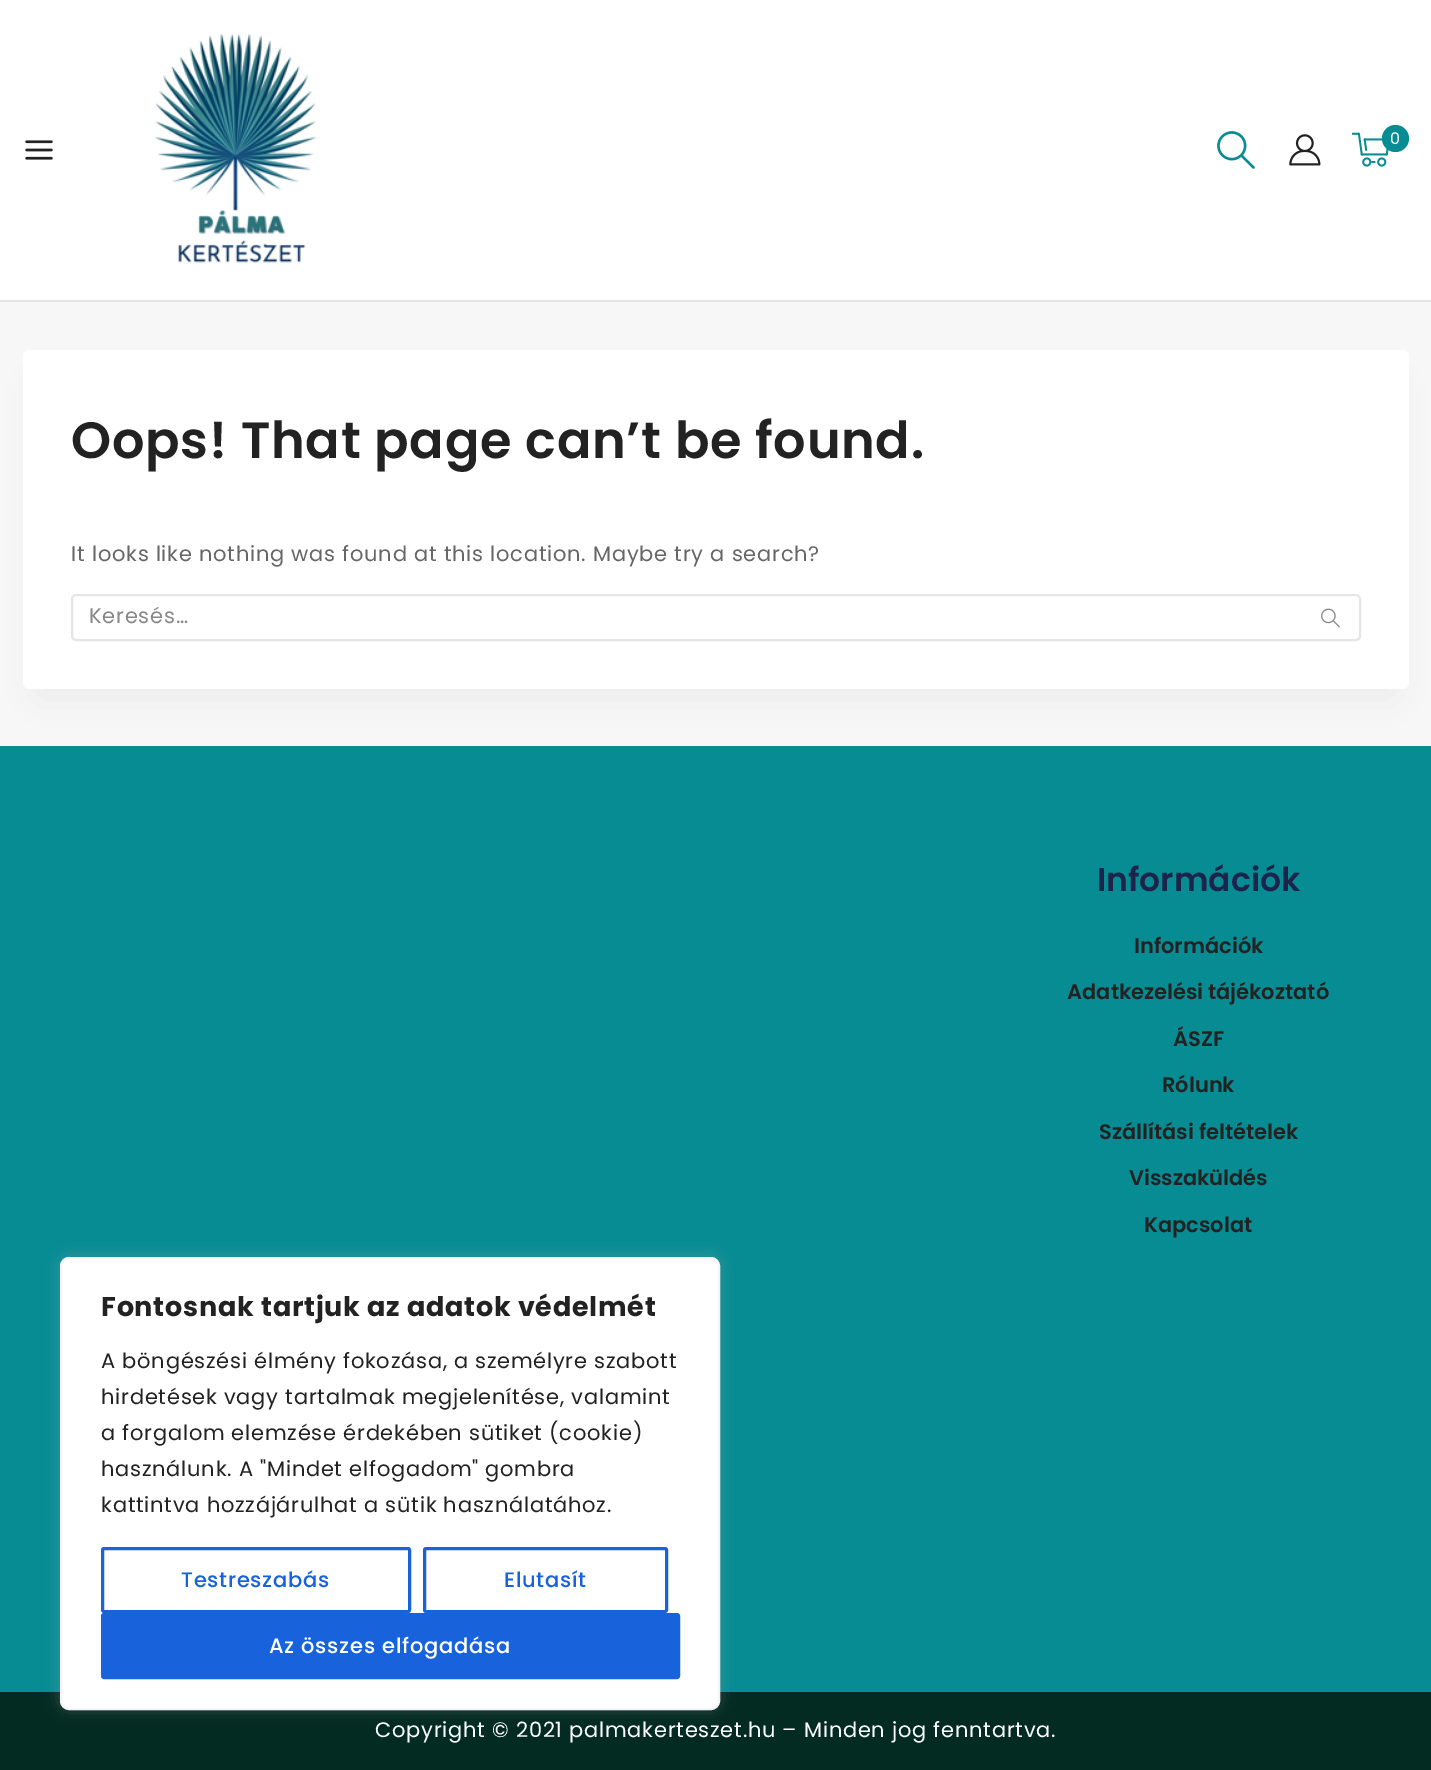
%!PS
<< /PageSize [1431 1770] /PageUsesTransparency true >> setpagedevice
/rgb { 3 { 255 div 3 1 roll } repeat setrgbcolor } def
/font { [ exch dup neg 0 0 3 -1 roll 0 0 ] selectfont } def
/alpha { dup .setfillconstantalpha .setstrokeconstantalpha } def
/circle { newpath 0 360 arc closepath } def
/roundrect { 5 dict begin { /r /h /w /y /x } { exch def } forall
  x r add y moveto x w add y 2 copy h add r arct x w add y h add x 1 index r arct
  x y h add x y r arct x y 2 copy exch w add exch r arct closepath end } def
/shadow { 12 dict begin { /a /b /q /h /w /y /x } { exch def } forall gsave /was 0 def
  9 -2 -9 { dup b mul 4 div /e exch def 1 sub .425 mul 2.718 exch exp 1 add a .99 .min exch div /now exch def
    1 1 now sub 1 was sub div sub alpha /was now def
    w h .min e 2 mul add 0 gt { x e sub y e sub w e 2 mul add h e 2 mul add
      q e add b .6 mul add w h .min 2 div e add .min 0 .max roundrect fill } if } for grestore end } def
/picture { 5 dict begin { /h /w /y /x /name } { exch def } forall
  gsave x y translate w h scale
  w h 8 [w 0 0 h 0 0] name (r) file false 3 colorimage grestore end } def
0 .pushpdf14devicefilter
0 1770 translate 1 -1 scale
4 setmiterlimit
247 247 247 rgb
0 0 1431 1770 rectfill
255 255 255 rgb
0 0 1431 300 rectfill
229 229 229 rgb
0 300 1431 2 rectfill
(img/1.rgb) 25 140 28 20 picture
(img/2.rgb) 154 33 163 230 picture
(img/3.rgb) 1217 131 38 38 picture
(img/4.rgb) 1289 134 32 32 picture
(img/5.rgb) 1352 132 37 35 picture
7 140 148 rgb
1395.5 138.5 13.5 circle fill
0 0 0 rgb
38 387 1356 309 0 19 0.05 shadow
255 255 255 rgb
23 350 1386 339 6 roundrect fill
229 229 229 rgb
2 setlinewidth
72 595 1288 45 4 roundrect stroke
(img/6.rgb) 1321 608 19 20 picture
7 140 148 rgb
0 746 1431 946 rectfill
3 43 34 rgb
0 1692 1431 78 rectfill
172 171 171 rgb
60 1256 660 453 9 7.5 0.3 shadow
255 255 255 rgb
61 1258 658 451 8 roundrect gsave fill grestore
244 244 244 rgb
stroke
24 99 220 rgb
3 setlinewidth
102.5 1548.5 307 63 1.5 roundrect stroke
424.5 1548.5 242 63 1.5 roundrect stroke
102.5 1614.5 576 63 1.5 roundrect gsave fill grestore
stroke
/Poppins-Regular 16 font
255 255 255 rgb
1390 144 moveto (0) show
/Poppins-SemiBold 51 font
34 34 34 rgb
71 458 moveto 0.75 0 (Oops! That page can’t be found.) ashow
/Poppins-Regular 21 font
102 102 102 rgb
71 561 moveto 0.75 0 (It looks like nothing was found at this location. Maybe try a search?) ashow
136 136 136 rgb
89 623 moveto 0.75 0 (Keresés…) ashow
/Poppins-SemiBold 33 font
28 36 75 rgb
1097 891 moveto (Információk) show
/Poppins-SemiBold 21 font
34 34 34 rgb
[
  [(Információk) 1134 953]
  [(Adatkezelési tájékoztató) 1067 999]
  [(ÁSZF) 1173 1046]
  [(Rólunk) 1162 1092]
  [(Szállítási feltételek) 1099 1139]
  [(Visszaküldés) 1129 1185]
  [(Kapcsolat) 1144 1232]
] { aload pop moveto show } forall
/Poppins-Regular 21 font
255 255 255 rgb
375 1737 moveto 0.75 0 (Copyright © 2021 palmakerteszet.hu – Minden jog fenntartva.) ashow
/Poppins-Bold 27 font
34 34 34 rgb
101 1316 moveto 0.75 0 (Fontosnak tartjuk az adatok védelmét) ashow
/Poppins-Regular 21 font
101 1368 moveto 0.75 0 (A böngészési élmény fokozása, a személyre szabott) ashow
101 1404 moveto 0.75 0 (hirdetések vagy tartalmak megjelenítése, valamint) ashow
101 1440 moveto 0.75 0 (a forgalom elemzése érdekében sütiket \(cookie\)) ashow
101 1476 moveto 0.75 0 (használunk. A "Mindet elfogadom" gombra) ashow
101 1512 moveto 0.75 0 (kattintva hozzájárulhat a sütik használatához.) ashow
/Poppins-Medium 21 font
24 99 220 rgb
181 1587 moveto 0.75 0 (Testreszabás) ashow
504 1587 moveto 0.75 0 (Elutasít) ashow
255 255 255 rgb
269 1653 moveto 0.75 0 (Az összes elfogadása) ashow
.poppdf14devicefilter showpage
